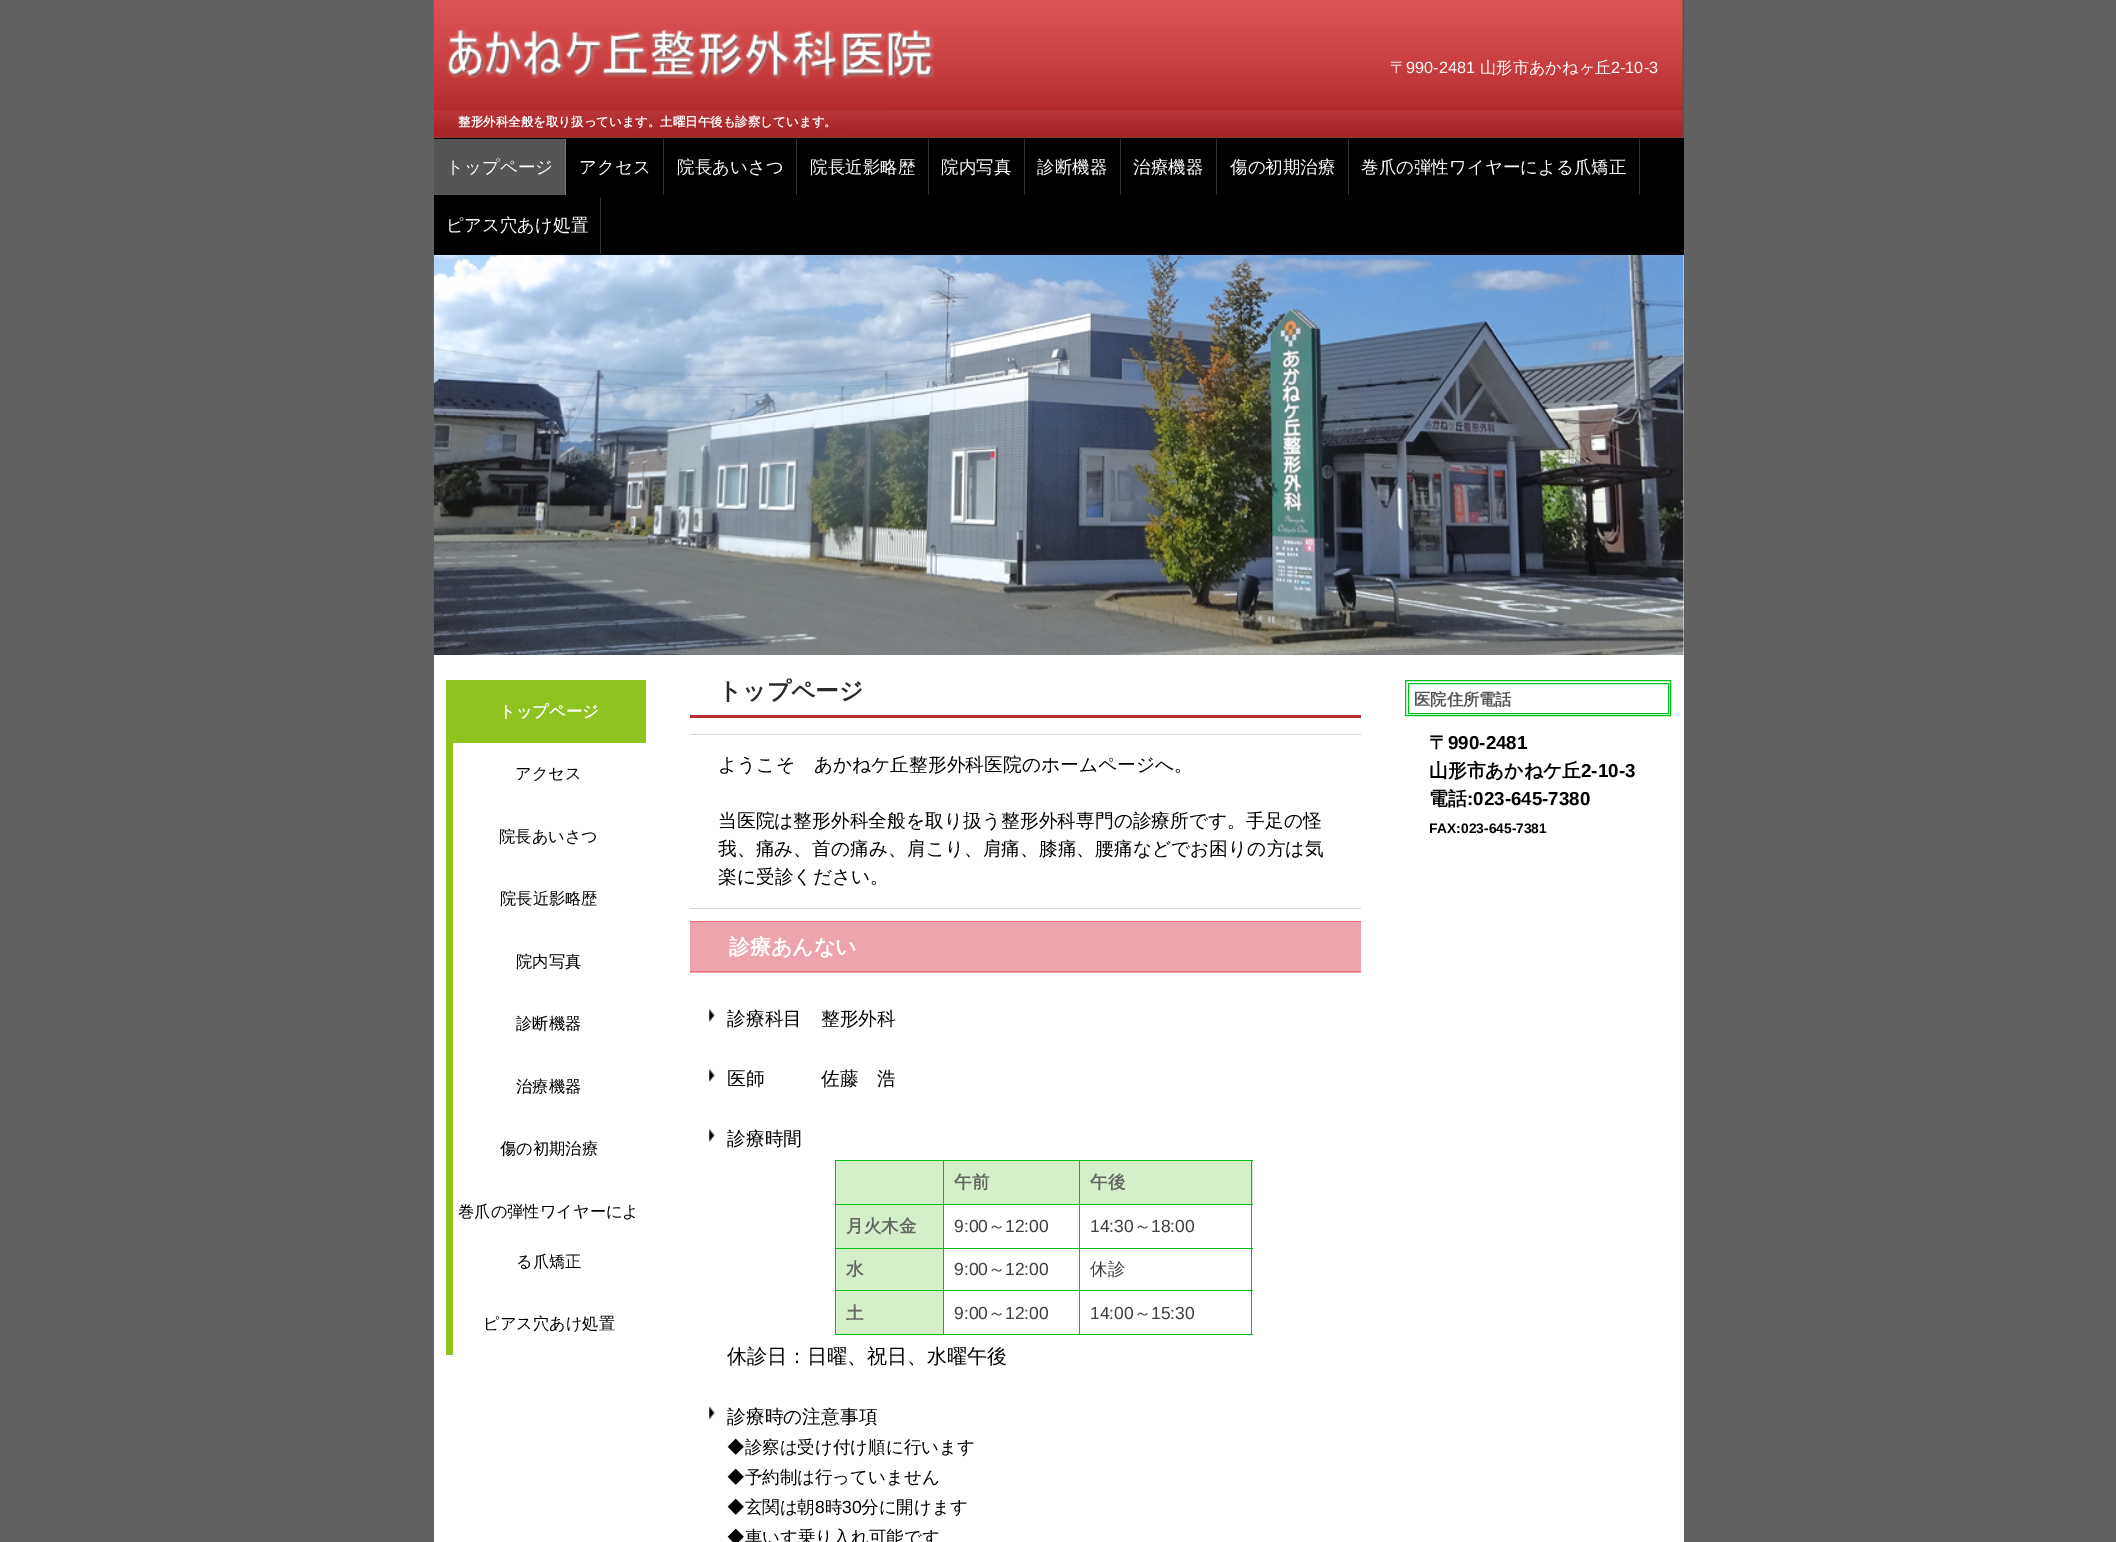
%!PS
<< /PageSize [2116 1542] >> setpagedevice
/rgb { 3 { 255 div 3 1 roll } repeat setrgbcolor } def
/font { [ exch dup neg 0 0 3 -1 roll 0 0 ] selectfont } def
/picture { 5 dict begin { /h /w /y /x /name } { exch def } forall
  gsave x y translate w h scale
  w h 8 [w 0 0 h 0 0] name (r) file false 3 colorimage grestore end } def
0 1542 translate 1 -1 scale
4 setmiterlimit
97 97 97 rgb
0 0 2116 1542 rectfill
85 85 85 rgb
434 0 1250 138 rectfill
(img/1.rgb) 433 0 1250 138 picture
(img/2.rgb) 447 29 488 51 picture
[
  [434 255 1250 1287 255 255 255]
  [434 138 1250 117 0 0 0]
  [434 139 131 56 85 85 85]
  [565 139 1 56 119 119 119]
  [663 139 1 56 51 51 51]
  [796 139 1 56 51 51 51]
  [928 139 1 56 51 51 51]
  [1024 139 1 56 51 51 51]
  [1120 139 1 56 51 51 51]
  [1216 139 1 56 51 51 51]
  [1348 139 1 56 51 51 51]
  [1639 139 1 56 51 51 51]
  [600 198 1 56 51 51 51]
] { aload pop rgb rectfill } forall
(img/3.rgb) 433 255 1251 400 picture
[
  [446 680 7 675 143 195 31]
  [453 680 193 63 143 195 31]
  [690 715 671 3 180 48 48]
  [690 734 671 1 213 213 213]
  [690 908 671 1 213 213 213]
  [690 922 671 51 238 164 173]
  [690 921 671 1 235 112 126]
  [690 971 671 1 235 112 126]
] { aload pop rgb rectfill } forall
(img/4.rgb) 709 1008 6 15 picture
(img/4.rgb) 709 1068 6 15 picture
(img/4.rgb) 709 1128 6 15 picture
[
  [836 1161 107 43 213 239 203]
  [1079 1160 174 1 2 193 15]
  [1079 1204 174 1 2 193 15]
  [1079 1248 174 1 2 193 15]
  [1079 1290 174 1 2 193 15]
  [1251 1290 1 45 2 193 15]
  [1079 1334 174 1 2 193 15]
  [1079 1290 1 45 2 193 15]
  [943 1290 137 1 2 193 15]
  [1079 1248 1 43 2 193 15]
  [943 1248 137 1 2 193 15]
  [1079 1204 1 45 2 193 15]
  [943 1204 137 1 2 193 15]
  [1079 1160 1 45 2 193 15]
  [943 1160 137 1 2 193 15]
  [943 1334 137 1 2 193 15]
  [943 1290 1 45 2 193 15]
  [835 1290 109 1 2 193 15]
  [943 1248 1 43 2 193 15]
  [835 1248 109 1 2 193 15]
  [943 1204 1 45 2 193 15]
  [835 1204 109 1 2 193 15]
  [943 1160 1 45 2 193 15]
  [835 1160 109 1 2 193 15]
  [835 1334 109 1 2 193 15]
  [835 1290 1 45 2 193 15]
  [835 1248 1 43 2 193 15]
  [835 1204 1 45 2 193 15]
  [835 1160 1 45 2 193 15]
  [944 1161 135 43 213 239 203]
  [1080 1161 173 43 213 239 203]
  [1251 1248 1 43 2 193 15]
  [1251 1204 1 45 2 193 15]
  [1251 1160 1 45 2 193 15]
  [836 1205 107 43 213 239 203]
  [836 1249 107 41 213 239 203]
  [836 1291 107 43 213 239 203]
] { aload pop rgb rectfill } forall
(img/5.rgb) 709 1406 6 14 picture
2 192 31 rgb
1405.5 680.5 265 35 rectstroke
1408.5 683.5 260 30 rectstroke
/WenQuanYiZenHei-Medium 16.25 font
255 255 255 rgb
1390 73 moveto (〒) show
/LiberationSans-Regular 16.25 font
1406 73 moveto (990-2481) show
/WenQuanYiZenHei-Medium 16.25 font
1480 73 moveto (山形市あかねヶ丘) show
/LiberationSans-Regular 16.25 font
1611 73 moveto (2-10-3) show
/WenQuanYiZenHei-Bold 12.5 font
458 126 moveto (整形外科全般を取り扱っています。土曜日午後も診察しています。) show
/WenQuanYiZenHei-Medium 17.5 font
[
  [(トップページ) 446 173]
  [(アクセス) 579 173]
  [(院長あいさつ) 677 173]
  [(院長近影略歴) 810 173]
  [(院内写真) 941 173]
  [(診断機器) 1037 173]
  [(治療機器) 1133 173]
  [(傷の初期治療) 1230 173]
  [(巻爪の弾性ワイヤーによる爪矯正) 1361 173]
  [(ピアス穴あけ処置) 446 231]
] { aload pop moveto show } forall
/WenQuanYiZenHei-Bold 16.25 font
499 717 moveto (トップページ) show
/WenQuanYiZenHei-Medium 16.25 font
0 0 0 rgb
[
  [(アクセス) 515 779]
  [(院長あいさつ) 499 842]
  [(院長近影略歴) 500 904]
  [(院内写真) 516 967]
  [(診断機器) 516 1029]
  [(治療機器) 516 1092]
  [(傷の初期治療) 500 1154]
  [(巻爪の弾性ワイヤーによ) 458 1217]
  [(る爪矯正) 516 1267]
  [(ピアス穴あけ処置) 483 1329]
] { aload pop moveto show } forall
/WenQuanYiZenHei-Bold 23.75 font
42 42 42 rgb
718 699 moveto (トップページ) show
/WenQuanYiZenHei-Medium 18.75 font
0 0 0 rgb
[
  [(ようこそ　あかねケ丘整形外科医院のホームページへ。) 718 771]
  [(当医院は整形外科全般を取り扱う整形外科専門の診療所です。手足の怪) 718 827]
  [(我、痛み、首の痛み、肩こり、肩痛、膝痛、腰痛などでお困りの方は気) 718 855]
  [(楽に受診ください。) 718 883]
] { aload pop moveto show } forall
/WenQuanYiZenHei-Bold 21 font
255 255 255 rgb
729 954 moveto (診療あんない) show
/WenQuanYiZenHei-Medium 18.75 font
0 0 0 rgb
[
  [(診療科目　整形外科) 727 1025]
  [(医師　　　佐藤　浩) 727 1085]
  [(診療時間) 727 1145]
] { aload pop moveto show } forall
/WenQuanYiZenHei-Bold 17.5 font
102 102 102 rgb
[
  [(午前) 954 1188]
  [(午後) 1090 1188]
  [(月火木金) 846 1232]
] { aload pop moveto show } forall
/LiberationSans-Regular 17.5 font
63 63 63 rgb
954 1232 moveto (9:00) show
/WenQuanYiZenHei-Medium 17.5 font
988 1232 moveto (～) show
/LiberationSans-Regular 17.5 font
1005 1232 moveto (12:00) show
1090 1232 moveto (14:30) show
/WenQuanYiZenHei-Medium 17.5 font
1134 1232 moveto (～) show
/LiberationSans-Regular 17.5 font
1151 1232 moveto (18:00) show
/WenQuanYiZenHei-Bold 17.5 font
102 102 102 rgb
846 1275 moveto (水) show
/LiberationSans-Regular 17.5 font
63 63 63 rgb
954 1275 moveto (9:00) show
/WenQuanYiZenHei-Medium 17.5 font
988 1275 moveto (～) show
/LiberationSans-Regular 17.5 font
1005 1275 moveto (12:00) show
/WenQuanYiZenHei-Medium 17.5 font
1090 1275 moveto (休診) show
/WenQuanYiZenHei-Bold 17.5 font
102 102 102 rgb
846 1319 moveto (土) show
/LiberationSans-Regular 17.5 font
63 63 63 rgb
954 1319 moveto (9:00) show
/WenQuanYiZenHei-Medium 17.5 font
988 1319 moveto (～) show
/LiberationSans-Regular 17.5 font
1005 1319 moveto (12:00) show
1090 1319 moveto (14:00) show
/WenQuanYiZenHei-Medium 17.5 font
1134 1319 moveto (～) show
/LiberationSans-Regular 17.5 font
1151 1319 moveto (15:30) show
/WenQuanYiZenHei-Medium 20 font
0 0 0 rgb
727 1363 moveto (休診日：日曜、祝日、水曜午後) show
/WenQuanYiZenHei-Medium 18.75 font
727 1423 moveto (診療時の注意事項) show
/WenQuanYiZenHei-Medium 17.5 font
[
  [(◆診察は受け付け順に行います) 727 1453]
  [(◆予約制は行っていません) 727 1483]
  [(◆玄関は朝) 727 1513]
] { aload pop moveto show } forall
/LiberationSans-Regular 17.5 font
815 1513 moveto (8) show
/WenQuanYiZenHei-Medium 17.5 font
825 1513 moveto (時) show
/LiberationSans-Regular 17.5 font
842 1513 moveto (30) show
/WenQuanYiZenHei-Medium 17.5 font
861 1513 moveto (分に開けます) show
727 1543 moveto (◆車いす乗り入れ可能です) show
/WenQuanYiZenHei-Bold 16.25 font
86 86 86 rgb
1414 705 moveto (医院住所電話) show
/WenQuanYiZenHei-Bold 18.75 font
0 0 0 rgb
1429 749 moveto (〒) show
/LiberationSans-Bold 18.75 font
1448 749 moveto (990-2481) show
/WenQuanYiZenHei-Bold 18.75 font
1429 777 moveto (山形市あかねケ丘) show
/LiberationSans-Bold 18.75 font
1581 777 moveto (2-10-3) show
/WenQuanYiZenHei-Bold 18.75 font
1429 805 moveto (電話) show
/LiberationSans-Bold 18.75 font
1467 805 moveto (:023-645-7380) show
/LiberationSans-Bold 13.75 font
1429 833 moveto (FAX:023-645-7381) show
showpage
